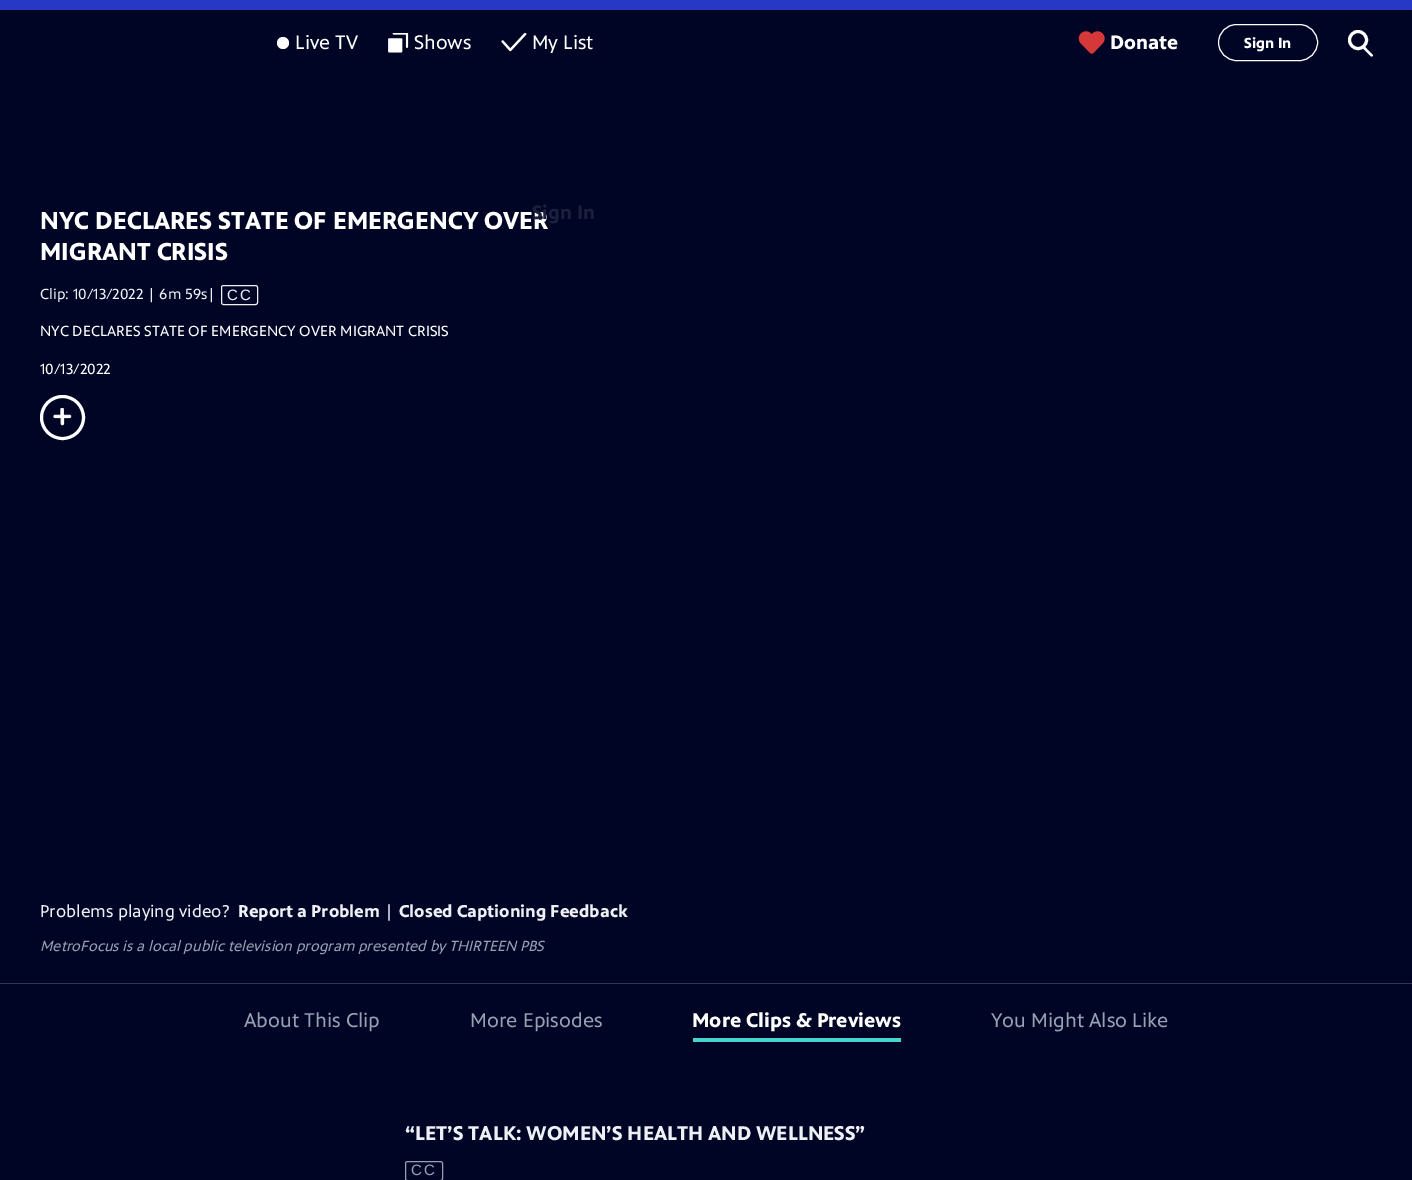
%!PS
<< /PageSize [1412 1180] >> setpagedevice
/rgb { 3 { 255 div 3 1 roll } repeat setrgbcolor } def
/font { [ exch dup neg 0 0 3 -1 roll 0 0 ] selectfont } def
/circle { newpath 0 360 arc closepath } def
/roundrect { 5 dict begin { /r /h /w /y /x } { exch def } forall
  x r add y moveto x w add y 2 copy h add r arct x w add y h add x 1 index r arct
  x y h add x y r arct x y 2 copy exch w add exch r arct closepath end } def
/picture { 5 dict begin { /h /w /y /x /name } { exch def } forall
  gsave x y translate w h scale
  w h 8 [w 0 0 h 0 0] name (r) file false 3 colorimage grestore end } def
0 1180 translate 1 -1 scale
4 setmiterlimit
0 5 37 rgb
0 0 1412 1180 rectfill
38 56 196 rgb
0 0 1412 10 rectfill
255 255 255 rgb
283 43 6 circle fill
(img/1.rgb) 388 33 21 20 picture
(img/2.rgb) 501 33 26 19 picture
(img/3.rgb) 1078 31 27 23 picture
1218.5 24.5 99 36 18 roundrect stroke
3 setlinewidth
1358 40 8.5 circle stroke
1370.5 56 moveto 1362 47.5 lineto 1362.5 46.5 lineto 1363.5 44.5 1366.5 48.5 1367 49 curveto 1373 55 lineto 1373 56.5 1371.5 57 1370.5 56 curveto closepath fill
238 240 245 rgb
1 setlinewidth
221.5 285.5 36 19 2 roundrect stroke
255 255 255 rgb
3 setlinewidth
62.5 417.5 21 circle stroke
(img/4.rgb) 53 408 19 18 picture
46 58 85 rgb
0 983 1412 1 rectfill
70 212 205 rgb
693 1038 208 4 rectfill
148 161 178 rgb
1 setlinewidth
405.5 1161.5 37 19 2 roundrect stroke
/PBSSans-Regular 20 font
255 255 255 rgb
[
  [(Live TV) 295 49]
  [(Shows) 414 49]
  [(My List) 532 49]
] { aload pop moveto show } forall
/PBSSans-Bold 20 font
1110 49 moveto (Donate) show
/PBSSans-Bold 15 font
1244 48 moveto (Sign In) show
/PBSSans-Bold 25 font
40 229 moveto (NYC DECLARES STATE OF EMERGENCY OVER) show
/PBSSans-Bold 20 font
26 31 59 rgb
532 219 moveto (Sign In) show
/PBSSans-Bold 25 font
255 255 255 rgb
40 260 moveto (MIGRANT CRISIS) show
/PBSSans-Regular 15 font
238 240 245 rgb
40 299 moveto (Clip: 10/13/2022 | 6m 59s|) show
/LiberationSans-Regular 15 font
227 300 moveto 2 0 (CC) ashow
/PBSSans-Regular 15 font
255 255 255 rgb
40 336 moveto (NYC DECLARES STATE OF EMERGENCY OVER MIGRANT CRISIS) show
40 374 moveto (10/13/2022) show
/PBSSans-Regular 17.5 font
238 240 245 rgb
40 917 moveto (Problems playing video?) show
/PBSSans-Bold 17.5 font
238 917 moveto (Report a Problem) show
/PBSSans-Regular 17.5 font
384 917 moveto (|) show
/PBSSans-Bold 17.5 font
399 917 moveto (Closed Captioning Feedback) show
/PBSSans-Italic 15 font
148 161 178 rgb
40 951 moveto (MetroFocus is a local public television program presented by THIRTEEN PBS) show
/PBSSans-Regular 20.4 font
244 1027 moveto (About This Clip) show
470 1027 moveto (More Episodes) show
/PBSSans-Bold 20.4 font
255 255 255 rgb
692 1027 moveto (More Clips & Previews) show
/PBSSans-Regular 20.4 font
148 161 178 rgb
991 1027 moveto (You Might Also Like) show
/PBSSans-Bold 20.4 font
238 240 245 rgb
405 1140 moveto (“LET’S TALK: WOMEN’S HEALTH AND WELLNESS”) show
/LiberationSans-Regular 15 font
148 161 178 rgb
411 1175 moveto 2 0 (CC) ashow
showpage
